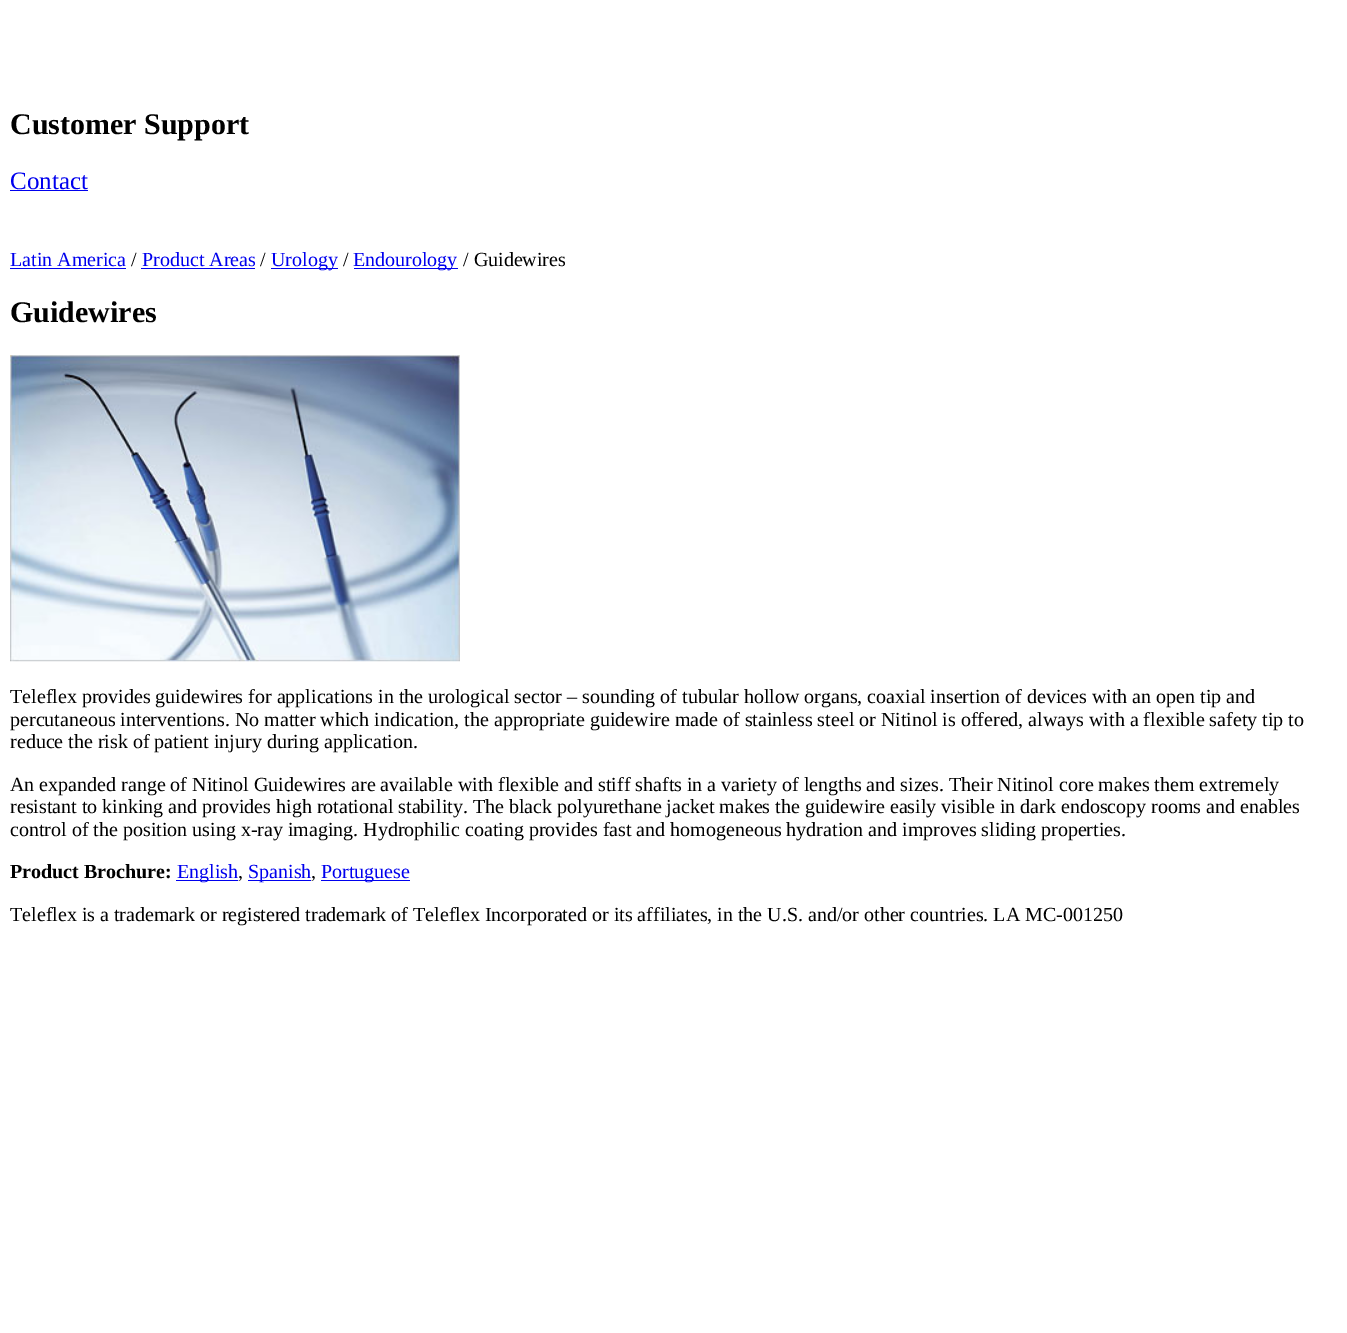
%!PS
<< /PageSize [1347 1333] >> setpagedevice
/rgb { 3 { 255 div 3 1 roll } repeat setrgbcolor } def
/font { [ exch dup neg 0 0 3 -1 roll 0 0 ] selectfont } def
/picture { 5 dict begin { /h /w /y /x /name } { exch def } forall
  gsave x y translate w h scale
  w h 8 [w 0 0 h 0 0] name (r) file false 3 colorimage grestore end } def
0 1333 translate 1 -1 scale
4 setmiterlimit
255 255 255 rgb
0 0 1347 1333 rectfill
[
  [10 190 78 1 0 0 238]
  [10 268 116 1 0 0 238]
  [141 268 114 1 0 0 238]
  [271 268 67 1 0 0 238]
  [354 268 104 1 0 0 238]
] { aload pop rgb rectfill } forall
(img/1.rgb) 10 355 450 307 picture
[
  [176 880 62 1 0 0 238]
  [248 880 63 1 0 0 238]
  [321 880 89 1 0 0 238]
] { aload pop rgb rectfill } forall
/LiberationSerif-Bold 30 font
0 0 0 rgb
10 134 moveto (Customer Support) show
/LiberationSerif-Regular 25 font
0 0 238 rgb
10 189 moveto (Contact) show
/LiberationSerif-Regular 20 font
10 266 moveto (Latin America) show
0 0 0 rgb
131 266 moveto (/) show
0 0 238 rgb
142 266 moveto (Product Areas) show
0 0 0 rgb
260 266 moveto (/) show
0 0 238 rgb
271 266 moveto (Urology) show
0 0 0 rgb
343 266 moveto (/) show
0 0 238 rgb
353 266 moveto (Endourology) show
0 0 0 rgb
463 266 moveto (/ Guidewires) show
/LiberationSerif-Bold 30 font
10 322 moveto (Guidewires) show
/LiberationSerif-Regular 20 font
[
  [(Teleflex provides guidewires for applications in the urological sector – sounding of tubular hollow organs, coaxial insertion of devices with an open tip and) 10 703]
  [(percutaneous interventions. No matter which indication, the appropriate guidewire made of stainless steel or Nitinol is offered, always with a flexible safety tip to) 10 726]
  [(reduce the risk of patient injury during application.) 10 748]
  [(An expanded range of Nitinol Guidewires are available with flexible and stiff shafts in a variety of lengths and sizes. Their Nitinol core makes them extremely) 10 791]
  [(resistant to kinking and provides high rotational stability. The black polyurethane jacket makes the guidewire easily visible in dark endoscopy rooms and enables) 10 813]
  [(control of the position using x-ray imaging. Hydrophilic coating provides fast and homogeneous hydration and improves sliding properties.) 10 836]
] { aload pop moveto show } forall
/LiberationSerif-Bold 20 font
10 878 moveto (Product Brochure:) show
/LiberationSerif-Regular 20 font
0 0 238 rgb
177 878 moveto (English) show
0 0 0 rgb
238 878 moveto (,) show
0 0 238 rgb
248 878 moveto (Spanish) show
0 0 0 rgb
311 878 moveto (,) show
0 0 238 rgb
321 878 moveto (Portuguese) show
0 0 0 rgb
10 921 moveto (Teleflex is a trademark or registered trademark of Teleflex Incorporated or its affiliates, in the U.S. and/or other countries. LA MC-001250) show
showpage
